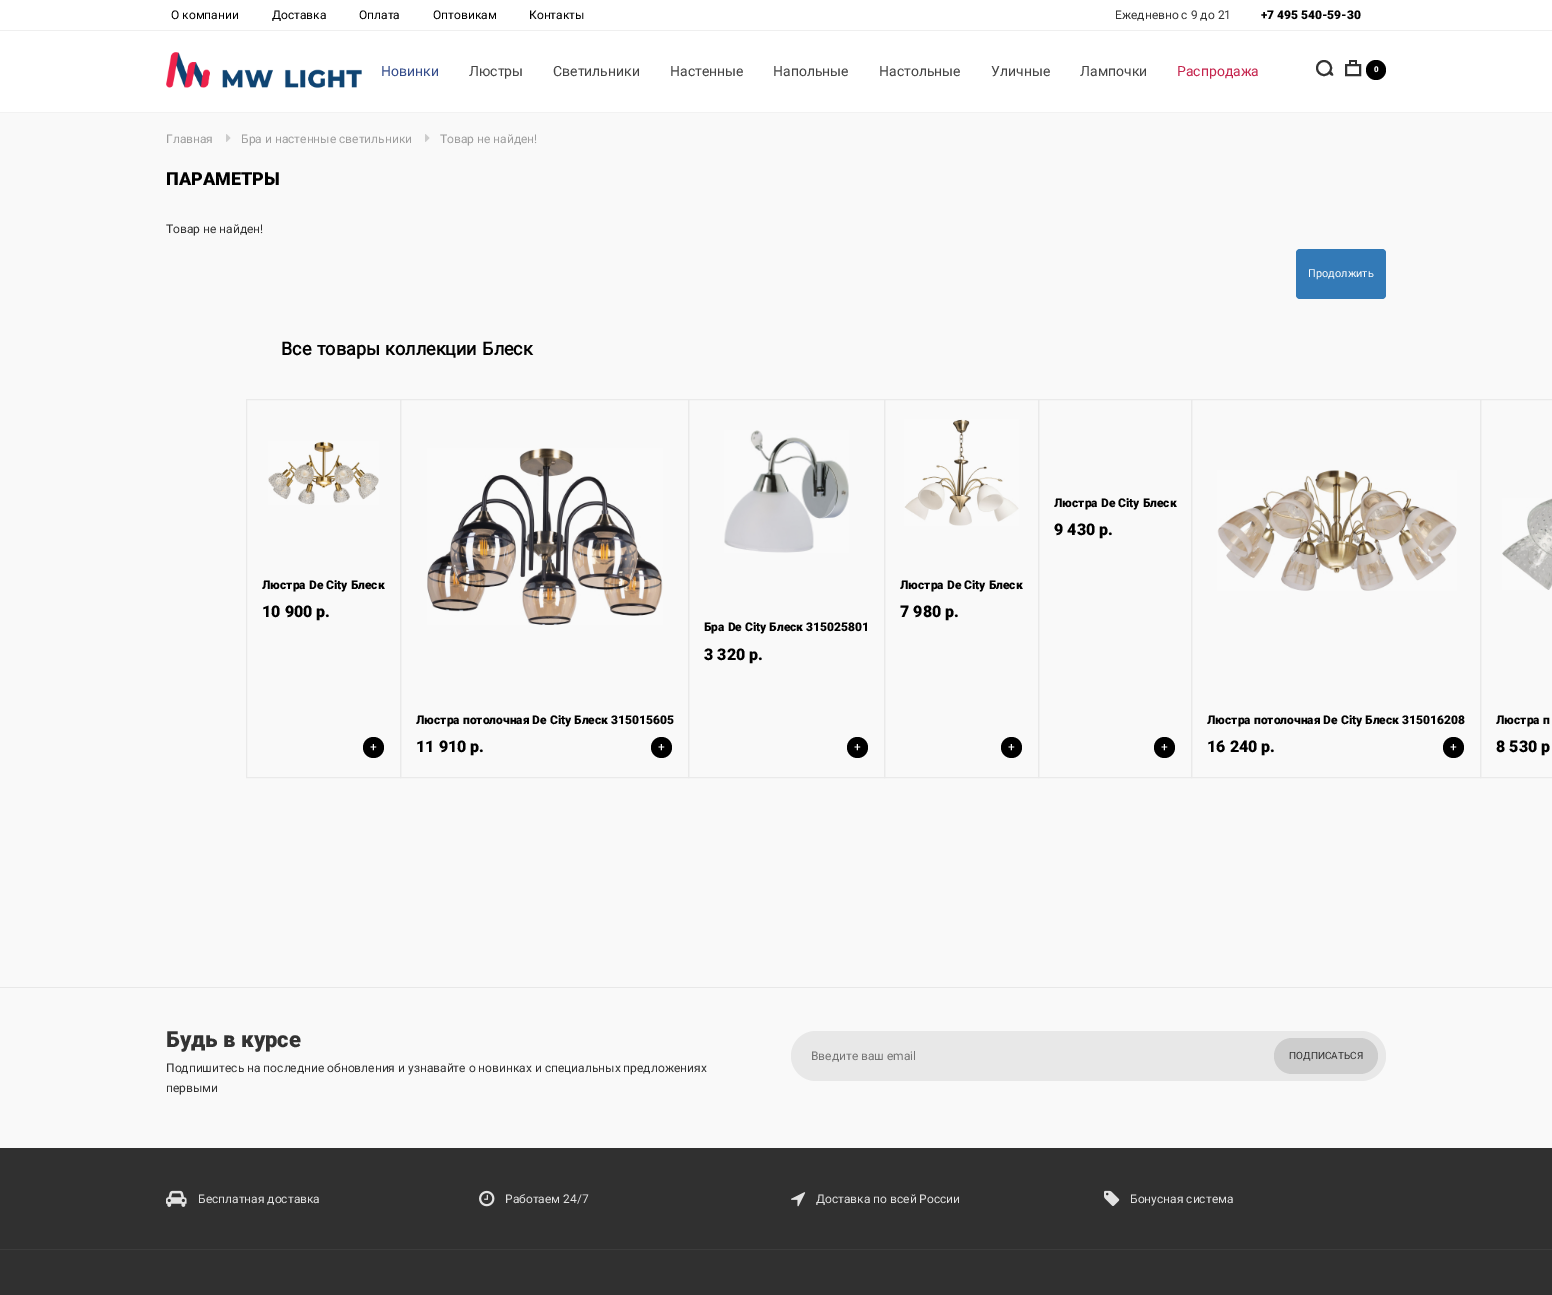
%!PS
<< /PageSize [1552 1295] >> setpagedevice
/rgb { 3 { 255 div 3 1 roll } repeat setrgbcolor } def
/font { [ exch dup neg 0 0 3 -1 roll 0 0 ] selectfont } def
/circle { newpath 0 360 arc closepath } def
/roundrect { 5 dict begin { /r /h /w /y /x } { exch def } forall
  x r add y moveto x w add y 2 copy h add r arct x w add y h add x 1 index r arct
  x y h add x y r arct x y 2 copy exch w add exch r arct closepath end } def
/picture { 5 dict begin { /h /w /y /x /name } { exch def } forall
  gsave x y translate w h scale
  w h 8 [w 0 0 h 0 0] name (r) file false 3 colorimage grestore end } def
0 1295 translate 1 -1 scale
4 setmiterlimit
249 249 249 rgb
0 0 1552 1295 rectfill
[
  [0 0 1552 112 255 255 255]
  [0 112 1552 1 242 242 242]
  [0 30 1552 1 239 239 239]
] { aload pop rgb rectfill } forall
(img/1.rgb) 166 52 196 36 picture
51 51 51 rgb
2 setlinewidth
1324 68 7 circle stroke
1333 75.5 moveto 1331.5 76.5 1328 73 1329 71.5 curveto 1330.5 70.5 1334 74 1333 75.5 curveto closepath fill
[
  [1349 60 8 2 51 51 51]
  [1355 60 2 6 51 51 51]
  [1349 60 2 6 51 51 51]
] { aload pop rgb rectfill } forall
1346 65 14 10 rectstroke
0 0 0 rgb
1376 70 10 circle fill
(img/2.rgb) 226 134 5 8 picture
(img/2.rgb) 425 134 5 8 picture
51 122 183 rgb
1296 249 90 50 4 roundrect fill
234 234 234 rgb
1 setlinewidth
246.5 399.5 154 378 rectstroke
(img/3.rgb) 268 441 111 64 picture
0 0 0 rgb
373.5 747.5 10.5 circle fill
234 234 234 rgb
400.5 399.5 288 378 rectstroke
(img/4.rgb) 427 448 236 177 picture
0 0 0 rgb
661.5 747.5 10.5 circle fill
234 234 234 rgb
688.5 399.5 196 378 rectstroke
(img/5.rgb) 724 430 125 123 picture
0 0 0 rgb
857.5 747.5 10.5 circle fill
234 234 234 rgb
884.5 399.5 154 378 rectstroke
(img/6.rgb) 904 419 115 107 picture
0 0 0 rgb
1011.5 747.5 10.5 circle fill
234 234 234 rgb
1038.5 399.5 153 378 rectstroke
0 0 0 rgb
1164.5 747.5 10.5 circle fill
234 234 234 rgb
1191.5 399.5 289 378 rectstroke
(img/7.rgb) 1217 470 240 121 picture
0 0 0 rgb
1453.5 747.5 10.5 circle fill
234 234 234 rgb
1480.5 399.5 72 378 rectstroke
(img/8.rgb) 1502 498 50 92 picture
232 232 232 rgb
0 987 1552 1 rectfill
791 1031 595 50 25 roundrect fill
205 205 205 rgb
1274 1038 104 36 18 roundrect fill
48 48 48 rgb
0 1148 1552 147 rectfill
60 60 60 rgb
0 1249 1552 1 rectfill
(img/9.rgb) 166 1190 21 17 picture
(img/10.rgb) 479 1190 16 17 picture
(img/11.rgb) 791 1192 15 15 picture
(img/12.rgb) 1104 1190 16 16 picture
/Roboto-Regular 12 font
0 0 0 rgb
[
  [(О компании) 171 19]
  [(Доставка) 272 19]
  [(Оплата) 359 19]
  [(Оптовикам) 433 19]
  [(Контакты) 529 19]
] { aload pop moveto show } forall
51 51 51 rgb
1115 19 moveto (Ежедневно с 9 до 21) show
/Roboto-Black 12 font
0 0 0 rgb
1261 19 moveto (+7 495 540-59-30) show
/Roboto-Regular 14 font
52 76 139 rgb
381 76 moveto (Новинки) show
68 68 68 rgb
[
  [(Люстры) 469 76]
  [(Светильники) 553 76]
  [(Настенные) 670 76]
  [(Напольные) 773 76]
  [(Настольные) 879 76]
  [(Уличные) 991 76]
  [(Лампочки) 1080 76]
] { aload pop moveto show } forall
197 36 77 rgb
1177 76 moveto (Распродажа) show
/Roboto-Black 8 font
255 255 255 rgb
1374 72 moveto (0) show
/Roboto-Regular 12 font
158 158 158 rgb
[
  [(Главная) 166 143]
  [(Бра и настенные светильники) 241 143]
  [(Товар не найден!) 440 143]
] { aload pop moveto show } forall
/Roboto-Black 18 font
0 0 0 rgb
166 185 moveto (ПАРАМЕТРЫ) show
/Roboto-Regular 12 font
51 51 51 rgb
166 233 moveto (Товар не найден!) show
/Roboto-Regular 11 font
255 255 255 rgb
1308 277 moveto (Продолжить) show
/Roboto-Bold 18 font
0 0 0 rgb
281 355 moveto 1 0 32 (Все товары коллекции Блеск) widthshow
/Roboto-Black 12 font
262 589 moveto (Люстра De City Блеск) show
/Roboto-Black 16 font
262 617 moveto (10 900 р.) show
/Roboto-Regular 12 font
255 255 255 rgb
370 751 moveto (+) show
/Roboto-Black 12 font
0 0 0 rgb
416 724 moveto (Люстра потолочная De City Блеск 315015605) show
/Roboto-Black 16 font
416 752 moveto (11 910 р.) show
/Roboto-Regular 12 font
255 255 255 rgb
658 751 moveto (+) show
/Roboto-Black 12 font
0 0 0 rgb
704 631 moveto (Бра De City Блеск 315025801) show
/Roboto-Black 16 font
704 660 moveto (3 320 р.) show
/Roboto-Regular 12 font
255 255 255 rgb
854 751 moveto (+) show
/Roboto-Black 12 font
0 0 0 rgb
900 589 moveto (Люстра De City Блеск) show
/Roboto-Black 16 font
900 617 moveto (7 980 р.) show
/Roboto-Regular 12 font
255 255 255 rgb
1008 751 moveto (+) show
/Roboto-Black 12 font
0 0 0 rgb
1054 507 moveto (Люстра De City Блеск) show
/Roboto-Black 16 font
1054 535 moveto (9 430 р.) show
/Roboto-Regular 12 font
255 255 255 rgb
1161 751 moveto (+) show
/Roboto-Black 12 font
0 0 0 rgb
1207 724 moveto (Люстра потолочная De City Блеск 315016208) show
/Roboto-Black 16 font
1207 752 moveto (16 240 р.) show
/Roboto-Regular 12 font
255 255 255 rgb
1450 751 moveto (+) show
/Roboto-Black 12 font
0 0 0 rgb
1496 724 moveto (Люстра п) show
/Roboto-Black 16 font
1496 752 moveto (8 530 р) show
/Roboto-Black 22 font
51 51 51 rgb
166 1047 moveto (Будь в курсе) show
/Roboto-Regular 12 font
166 1072 moveto (Подпишитесь на последние обновления и узнавайте о новинках и специальных предложениях) show
166 1092 moveto (первыми) show
117 117 117 rgb
811 1060 moveto (Введите ваш email) show
/Roboto-Regular 10 font
51 51 51 rgb
1289 1059 moveto (ПОДПИСАТЬСЯ) show
/Roboto-Regular 12 font
226 226 226 rgb
[
  [(Бесплатная доставка) 198 1203]
  [(Работаем 24/7) 505 1203]
  [(Доставка по всей России) 816 1203]
  [(Бонусная система) 1130 1203]
] { aload pop moveto show } forall
showpage
